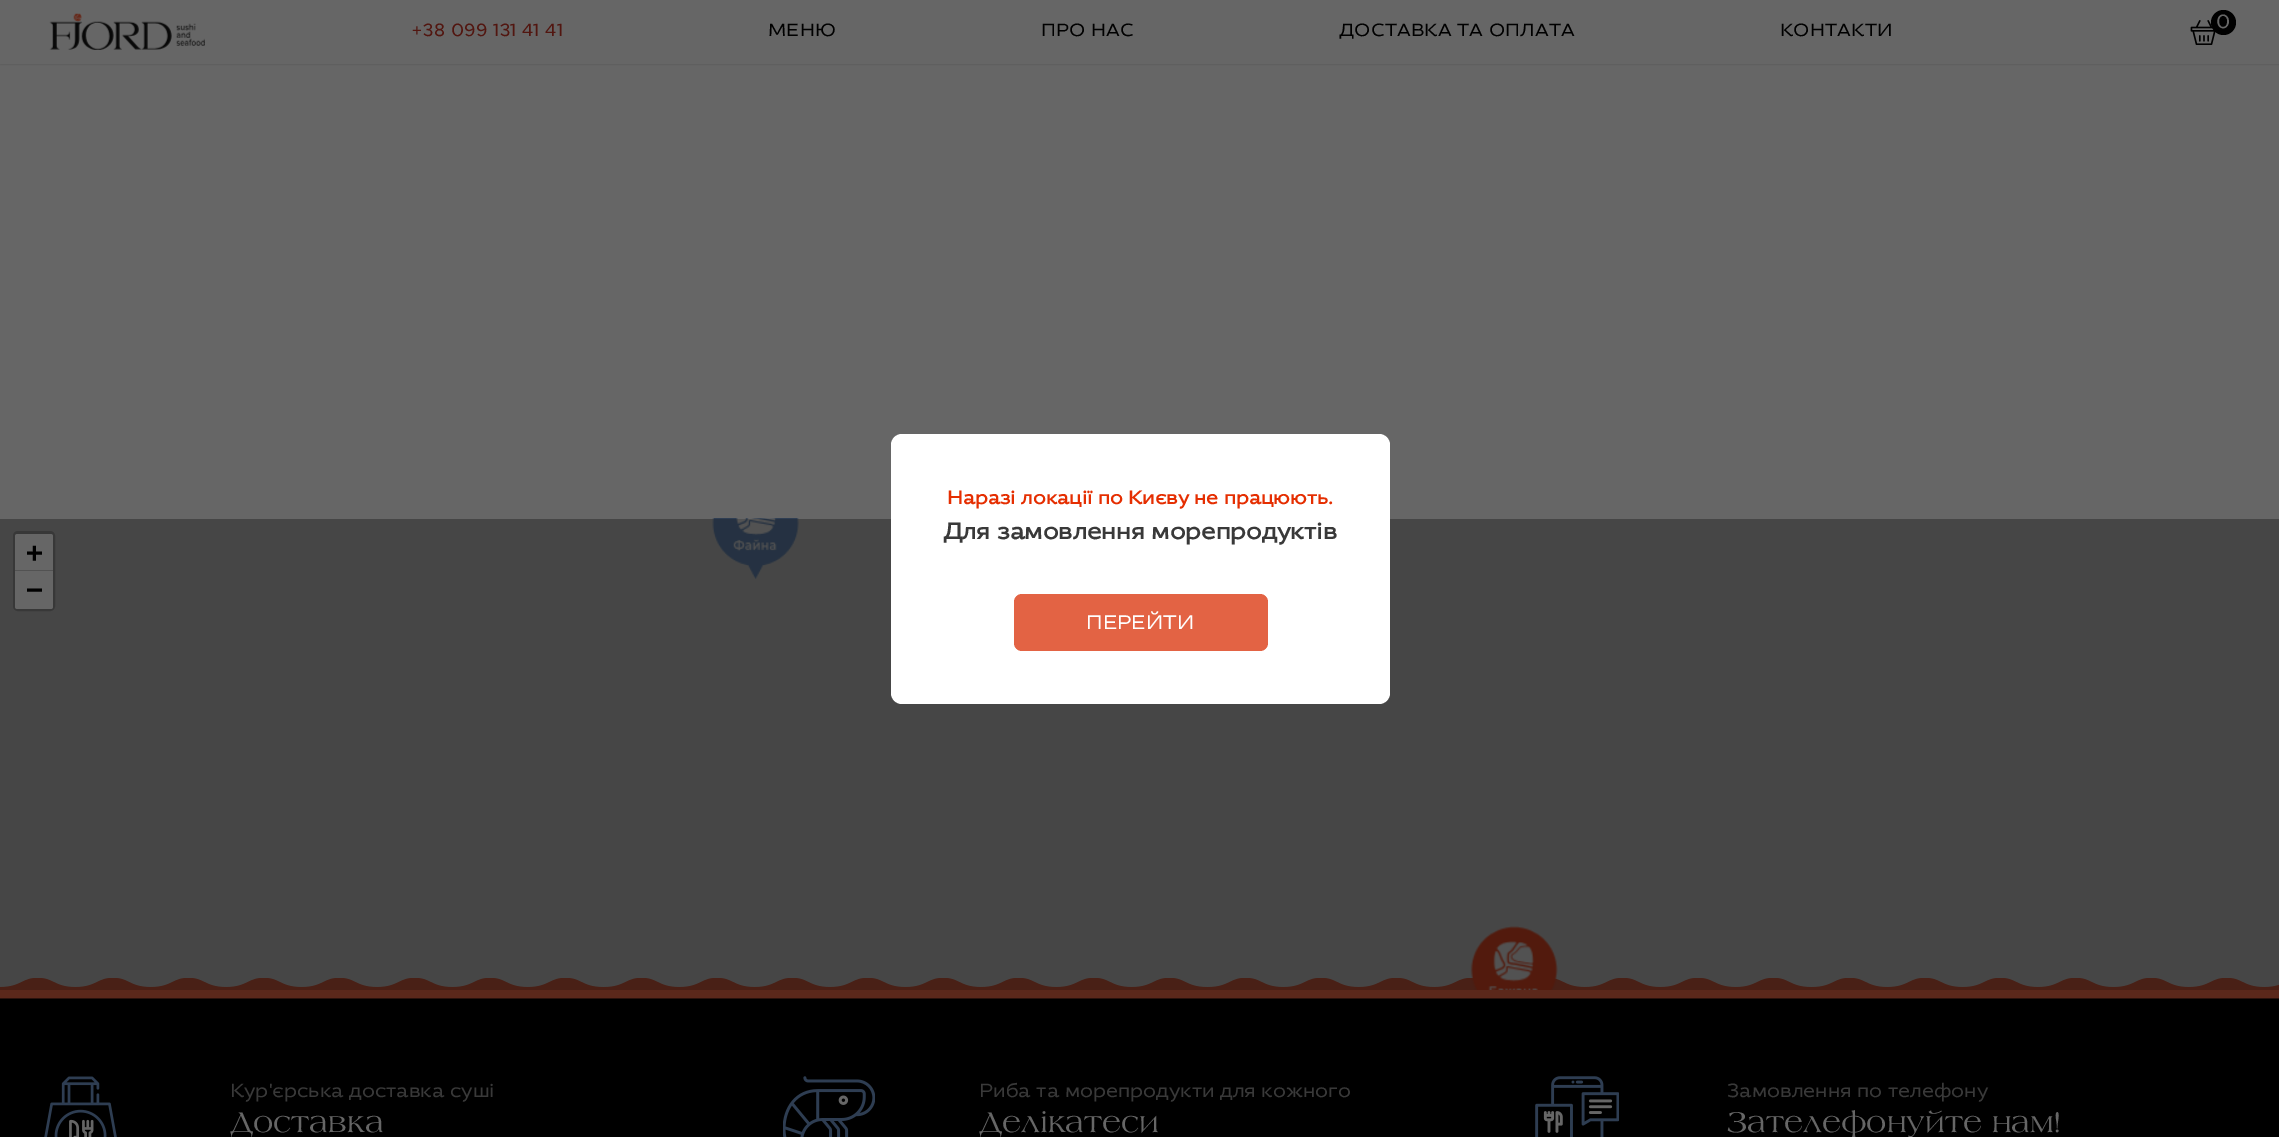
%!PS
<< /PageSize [2279 1137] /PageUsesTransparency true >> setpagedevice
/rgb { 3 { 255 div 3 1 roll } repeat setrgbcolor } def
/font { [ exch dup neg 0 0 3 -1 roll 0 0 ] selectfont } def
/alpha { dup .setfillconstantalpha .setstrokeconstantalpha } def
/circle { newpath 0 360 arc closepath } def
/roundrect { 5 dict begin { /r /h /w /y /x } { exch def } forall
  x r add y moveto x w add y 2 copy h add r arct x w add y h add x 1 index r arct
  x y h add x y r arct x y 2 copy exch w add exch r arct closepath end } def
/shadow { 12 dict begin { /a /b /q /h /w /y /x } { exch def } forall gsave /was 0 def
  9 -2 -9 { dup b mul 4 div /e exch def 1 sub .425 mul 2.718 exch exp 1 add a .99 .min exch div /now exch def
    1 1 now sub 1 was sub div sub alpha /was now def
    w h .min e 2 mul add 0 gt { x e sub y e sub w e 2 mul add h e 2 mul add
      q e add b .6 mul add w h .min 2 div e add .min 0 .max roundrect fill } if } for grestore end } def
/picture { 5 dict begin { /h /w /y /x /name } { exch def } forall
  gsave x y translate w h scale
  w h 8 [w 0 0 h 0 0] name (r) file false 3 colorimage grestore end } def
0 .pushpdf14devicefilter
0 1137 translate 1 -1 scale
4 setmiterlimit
102 102 102 rgb
0 0 2279 1137 rectfill
0 0 0 rgb
0 1 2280 64 0 1 0.1 shadow
102 102 102 rgb
0 0 2279 64 rectfill
(img/1.rgb) 2190 20 26 25 picture
0 0 0 rgb
2223.5 22.5 12.5 circle fill
(img/2.rgb) 49 13 156 37 picture
88 88 88 rgb
0 519 2279 468 rectfill
(img/3.rgb) 712 518 87 61 picture
0 0 0 rgb
0 998 2279 139 rectfill
(img/5.rgb) 0 978 2279 21 picture
(img/4.rgb) 1470 926 88 64 picture
0.2 alpha
0 519 2279 471 rectfill
1 alpha
56 56 56 rgb
3 setlinewidth
14.5 532.5 39 77 3.5 roundrect stroke
102 102 102 rgb
17.5 534 moveto 50.5 534 lineto 52 534 53 535 53 536.5 curveto 53 571 lineto 15 571 lineto 15 536.5 lineto 15 535 16 534 17.5 534 curveto closepath fill
82 82 82 rgb
15 570 38 1 rectfill
102 102 102 rgb
15 571 moveto 53 571 lineto 53 606.5 lineto 53 608 52 609 50.5 609 curveto 17.5 609 lineto 16 609 15 608 15 606.5 curveto closepath fill
(img/6.rgb) 44 1076 73 61 picture
(img/7.rgb) 783 1076 92 61 picture
(img/8.rgb) 1535 1076 84 61 picture
255 255 255 rgb
891 434 499 270 11 roundrect fill
227 99 68 rgb
1014 594 254 57 8 roundrect fill
/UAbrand-Regular 19 font
102 102 102 rgb
2216 28 moveto (0) show
/UAbrand-Regular 17.5 font
82 22 16 rgb
411 36 moveto 0.2 0 (+38 099 131 41 41) ashow
0 0 0 rgb
768 36 moveto 0.2 0 (МЕНЮ) ashow
1041 36 moveto 0.2 0 (ПРО НАС) ashow
1339 36 moveto 0.2 0 (ДОСТАВКА ТА ОПЛАТА) ashow
1780 36 moveto 0.2 0 (КОНТАКТИ) ashow
/DejaVuSansMono-Bold 28 font
26 562 moveto (+) show
26 599 moveto (−) show
/UAbrand-Regular 18.9 font
57 57 57 rgb
230 1097 moveto (Кур'єрська доставка суші) show
/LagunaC-Regular 30.4 font
102 102 102 rgb
230 1132 moveto (Доставка) show
/UAbrand-Regular 18.9 font
57 57 57 rgb
979 1097 moveto (Риба та морепродукти для кожного) show
/LagunaC-Regular 30.4 font
102 102 102 rgb
979 1132 moveto (Делікатеси) show
/UAbrand-Regular 18.9 font
57 57 57 rgb
1727 1097 moveto (Замовлення по телефону) show
/LagunaC-Regular 30.4 font
102 102 102 rgb
1727 1132 moveto (Зателефонуйте нам!) show
/UAbrand-Bold 18.6 font
229 46 1 rgb
947 504 moveto (Наразі локації по Києву не працюють.) show
/UAbrand-Bold 22.75 font
57 57 57 rgb
943 539 moveto (Для замовлення морепродуктів) show
/UAbrand-Regular 19.5 font
255 255 255 rgb
1086 629 moveto (ПЕРЕЙТИ) show
.poppdf14devicefilter showpage
